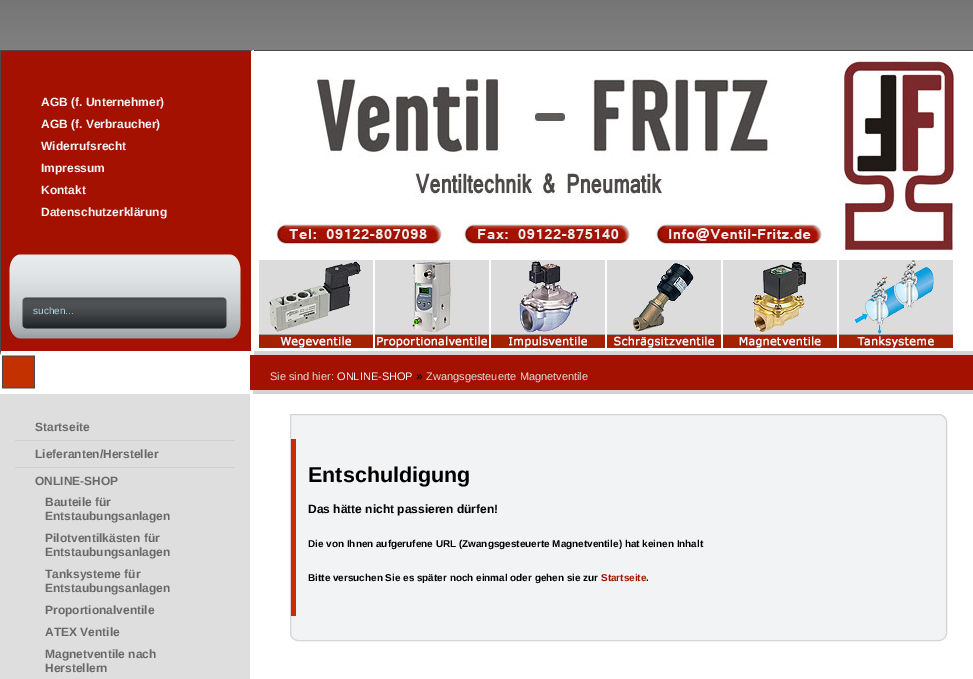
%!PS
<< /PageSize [973 679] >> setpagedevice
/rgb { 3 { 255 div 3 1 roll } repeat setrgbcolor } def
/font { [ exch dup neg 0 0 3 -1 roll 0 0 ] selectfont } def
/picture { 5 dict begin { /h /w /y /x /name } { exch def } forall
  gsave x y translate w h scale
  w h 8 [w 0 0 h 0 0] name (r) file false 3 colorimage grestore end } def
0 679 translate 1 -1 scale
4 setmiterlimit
255 255 255 rgb
0 0 973 679 rectfill
(img/1.rgb) 0 0 973 355 picture
165 17 0 rgb
1 51 250 300 rectfill
74 74 74 rgb
0 50 moveto 254 50 lineto 251 51 lineto 1 51 lineto closepath fill
255 255 255 rgb
254 50 moveto 254 355 lineto 251 351 lineto 251 51 lineto closepath fill
254 355 moveto 0 355 lineto 1 351 lineto 251 351 lineto closepath fill
74 74 74 rgb
0 355 moveto 0 50 lineto 1 51 lineto 1 351 lineto closepath fill
(img/2.rgb) 9 254 232 85 picture
255 255 255 rgb
254 51 719 300 rectfill
74 74 74 rgb
254 50 moveto 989 50 lineto 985 51 lineto 254 51 lineto closepath fill
211 211 211 rgb
254 351 719 4 rectfill
(img/3.rgb) 270 61 684 190 picture
(img/4.rgb) 259 260 114 88 picture
(img/5.rgb) 375 260 114 88 picture
(img/6.rgb) 491 260 114 88 picture
(img/7.rgb) 607 260 114 88 picture
(img/8.rgb) 723 260 114 88 picture
(img/9.rgb) 839 260 114 88 picture
(img/10.rgb) 2 355 33 34 picture
[
  [250 355 723 35 165 17 0]
  [0 394 250 285 222 222 222]
  [15 440 220 1 208 208 208]
  [15 467 220 1 208 208 208]
  [253 390 720 4 211 211 211]
] { aload pop rgb rectfill } forall
241 243 244 rgb
290.5 414.5 moveto 939 414.5 lineto 943 414.5 946.5 418 946.5 422 curveto 946.5 633 lineto 946.5 637 943 640.5 939 640.5 curveto 298 640.5 lineto 294 640.5 290.5 637 290.5 633 curveto closepath gsave fill grestore
213 213 213 rgb
stroke
195 46 4 rgb
291 439 5 177 rectfill
/LiberationSans-Bold 12 font
245 245 245 rgb
[
  [(AGB \(f. Unternehmer\)) 41 106]
  [(AGB \(f. Verbraucher\)) 41 128]
  [(Widerrufsrecht) 41 150]
  [(Impressum) 41 172]
  [(Kontakt) 41 194]
  [(Datenschutzerklärung) 41 216]
] { aload pop moveto show } forall
/LiberationSans-Regular 10 font
173 216 230 rgb
33 314 moveto (suchen...) show
/LiberationSans-Regular 11 font
220 220 220 rgb
270 380 moveto (Sie sind hier:) show
245 245 245 rgb
337 380 moveto (ONLINE-SHOP) show
/LiberationSans-Regular 12 font
0 0 0 rgb
416 380 moveto (») show
/LiberationSans-Regular 11 font
220 220 220 rgb
426 380 moveto (Zwangsgesteuerte Magnetventile) show
/LiberationSans-Bold 12 font
105 105 105 rgb
[
  [(Startseite) 35 431]
  [(Lieferanten/Hersteller) 35 458]
  [(ONLINE-SHOP) 35 485]
  [(Bauteile für) 45 506]
  [(Entstaubungsanlagen) 45 520]
  [(Pilotventilkästen für) 45 542]
  [(Entstaubungsanlagen) 45 556]
  [(Tanksysteme für) 45 578]
  [(Entstaubungsanlagen) 45 592]
  [(Proportionalventile) 45 614]
  [(ATEX Ventile) 45 636]
  [(Magnetventile nach) 45 658]
  [(Herstellern) 45 672]
] { aload pop moveto show } forall
/LiberationSans-Bold 21.5 font
0 0 0 rgb
308 482 moveto (Entschuldigung) show
/LiberationSans-Bold 12 font
308 513 moveto (Das hätte nicht passieren dürfen!) show
/LiberationSans-Bold 9.95 font
308 547 moveto (Die von Ihnen aufgerufene URL \(Zwangsgesteuerte Magnetventile\) hat keinen Inhalt) show
308 581 moveto (Bitte versuchen Sie es später noch einmal oder gehen sie zur) show
165 17 0 rgb
601 581 moveto (Startseite) show
0 0 0 rgb
646 581 moveto (.) show
showpage
